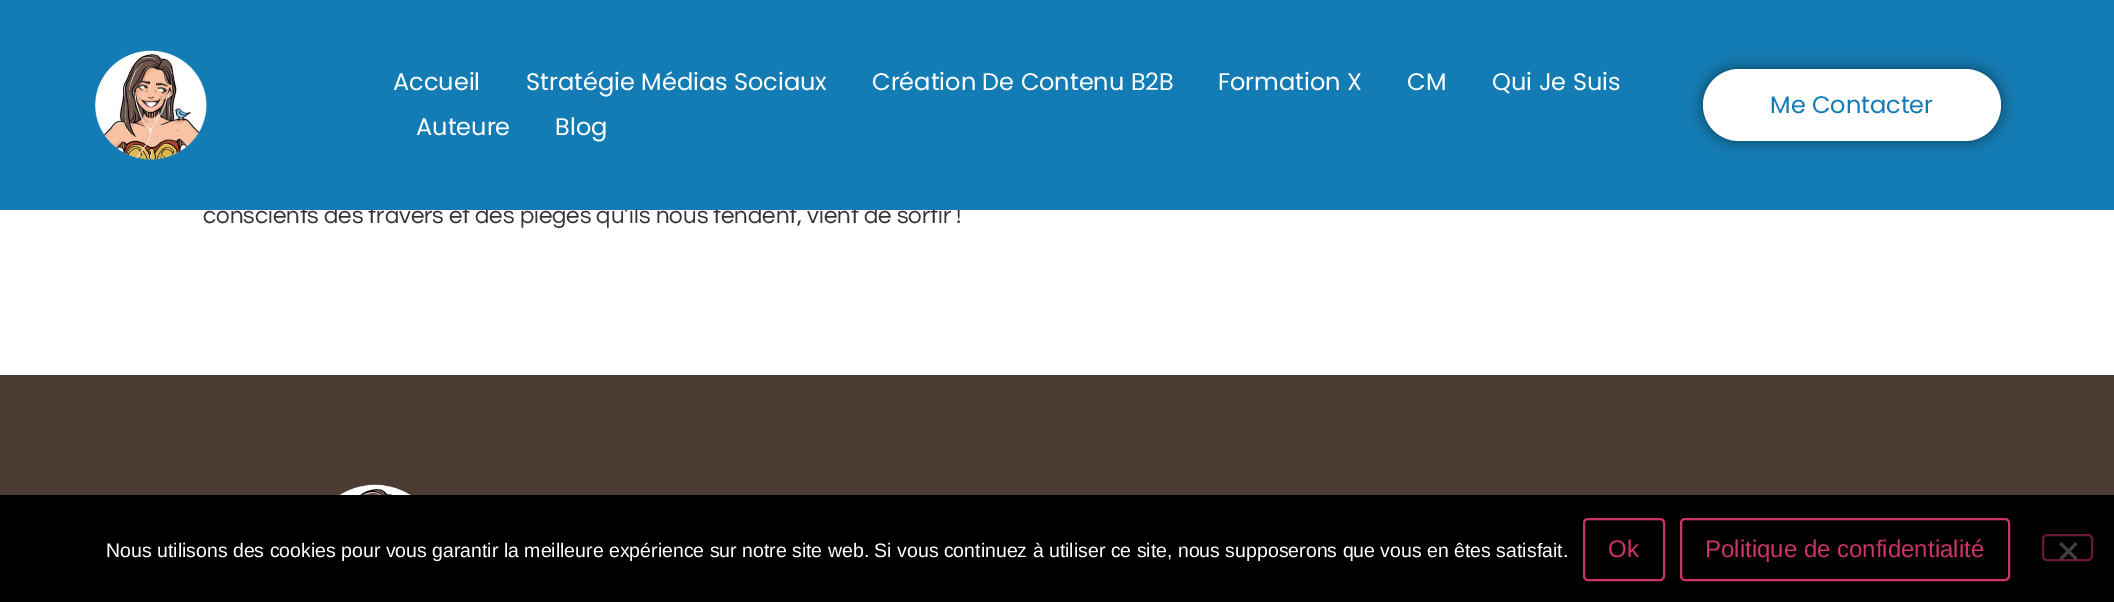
%!PS
<< /PageSize [2114 602] /PageUsesTransparency true >> setpagedevice
/rgb { 3 { 255 div 3 1 roll } repeat setrgbcolor } def
/font { [ exch dup neg 0 0 3 -1 roll 0 0 ] selectfont } def
/alpha { dup .setfillconstantalpha .setstrokeconstantalpha } def
/roundrect { 5 dict begin { /r /h /w /y /x } { exch def } forall
  x r add y moveto x w add y 2 copy h add r arct x w add y h add x 1 index r arct
  x y h add x y r arct x y 2 copy exch w add exch r arct closepath end } def
/shadow { 12 dict begin { /a /b /q /h /w /y /x } { exch def } forall gsave /was 0 def
  9 -2 -9 { dup b mul 4 div /e exch def 1 sub .425 mul 2.718 exch exp 1 add a .99 .min exch div /now exch def
    1 1 now sub 1 was sub div sub alpha /was now def
    w h .min e 2 mul add 0 gt { x e sub y e sub w e 2 mul add h e 2 mul add
      q e add b .6 mul add w h .min 2 div e add .min 0 .max roundrect fill } if } for grestore end } def
/picture { 5 dict begin { /h /w /y /x /name } { exch def } forall
  gsave x y translate w h scale
  w h 8 [w 0 0 h 0 0] name (r) file false 3 colorimage grestore end } def
0 .pushpdf14devicefilter
0 602 translate 1 -1 scale
4 setmiterlimit
255 255 255 rgb
0 0 2114 602 rectfill
76 59 51 rgb
0 375 2114 120 rectfill
(img/2.rgb) 339 484 72 11 picture
0 0 0 rgb
0 495 2114 107 rectfill
204 51 102 rgb
2 setlinewidth
1584 519 80 61 4 roundrect stroke
1681 519 328 61 4 roundrect stroke
102 26 51 rgb
2043 535 49 25 4 roundrect stroke
64 64 64 rgb
2075.5 542 moveto 2077.5 544.5 lineto 2061.5 560.5 lineto 2059.5 558 lineto closepath fill
2059.5 544.5 moveto 2061.5 542 lineto 2077.5 558 lineto 2075.5 560.5 lineto closepath fill
/Questrial-Regular 24 font
51 51 51 rgb
203 223 moveto (conscients des travers et des pièges qu’ils nous tendent, vient de sortir !) show
20 124 180 rgb
0 0 2114 210 rectfill
/Poppins-Regular 24 font
255 255 255 rgb
[
  [(Blog) 555 135]
  [(Auteure) 416 135]
  [(Qui Je Suis) 1492 90]
  [(CM) 1407 90]
  [(Formation X) 1218 90]
  [(Création De Contenu B2B) 872 90]
  [(Stratégie Médias Sociaux) 526 90]
  [(Accueil) 393 90]
] { aload pop moveto show } forall
0 0 0 rgb
1703 69 298 72 36 7.5 0.5 shadow
255 255 255 rgb
1703 69 298 72 36 roundrect fill
20 124 180 rgb
1770 113 moveto (Me Contacter) show
(img/1.rgb) 94 50 113 110 picture
/LiberationSans-Regular 19.5 font
255 255 255 rgb
106 557 moveto (Nous utilisons des cookies pour vous garantir la meilleure expérience sur notre site web. Si vous continuez à utiliser ce site, nous supposerons que vous en êtes satisfait.) show
/LiberationSans-Regular 24 font
204 51 102 rgb
1608 557 moveto (Ok) show
1705 557 moveto (Politique de confidentialité) show
.poppdf14devicefilter showpage
